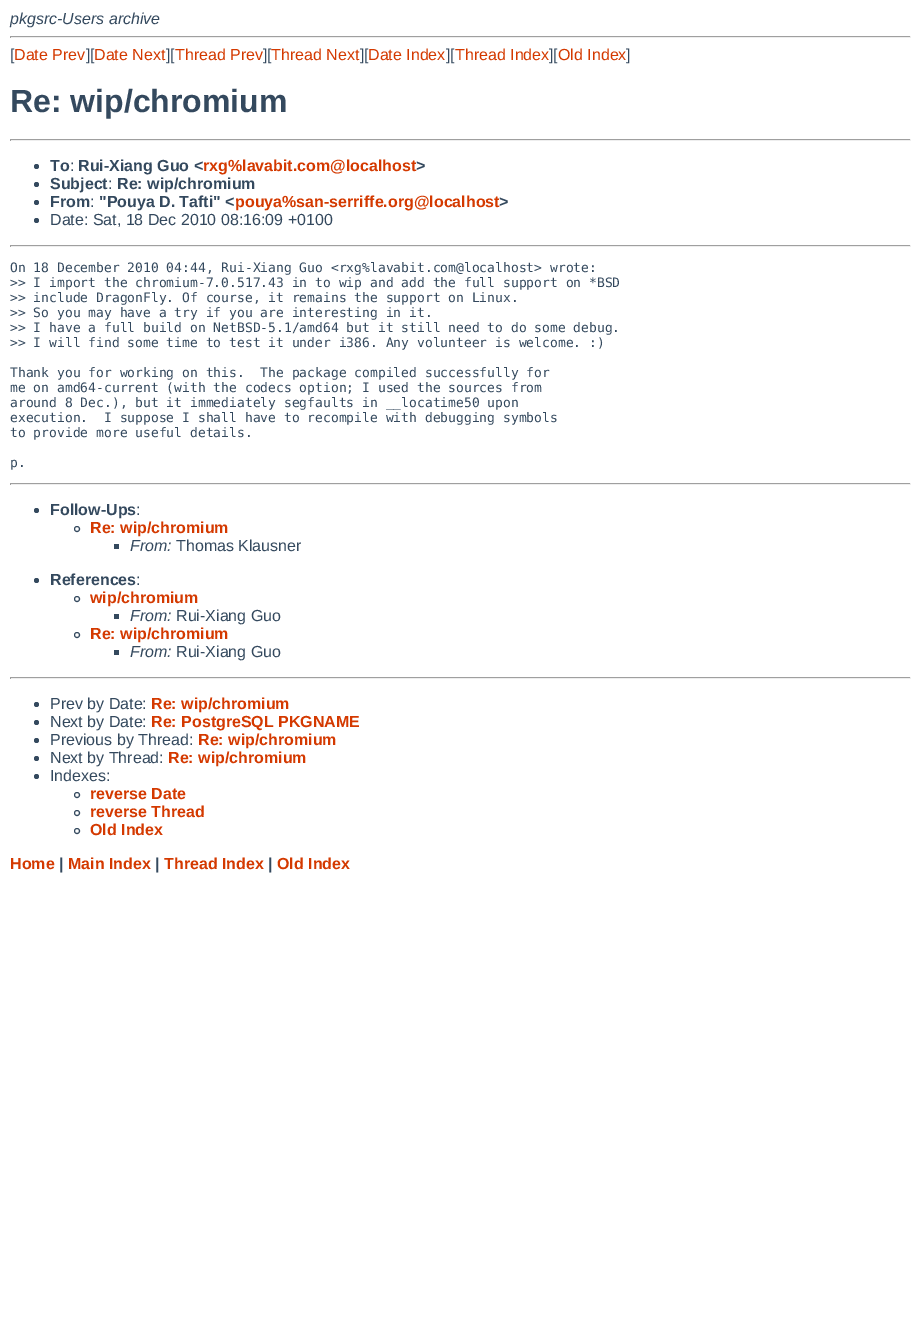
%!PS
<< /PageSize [921 1338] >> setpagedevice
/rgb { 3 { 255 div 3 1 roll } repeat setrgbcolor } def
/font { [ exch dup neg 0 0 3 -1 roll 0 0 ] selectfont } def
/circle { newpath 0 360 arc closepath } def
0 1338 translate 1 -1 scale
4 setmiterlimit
255 255 255 rgb
0 0 921 1338 rectfill
[
  [10 36 901 1 159 159 159]
  [910 36 1 2 238 238 238]
  [10 37 901 1 238 238 238]
  [10 36 1 2 159 159 159]
  [10 139 901 1 159 159 159]
  [910 139 1 2 238 238 238]
  [10 140 901 1 238 238 238]
  [10 139 1 2 159 159 159]
] { aload pop rgb rectfill } forall
52 73 94 rgb
36.5 166.5 2.5 circle fill
36.5 184.5 2.5 circle fill
36.5 202.5 2.5 circle fill
36.5 220.5 2.5 circle fill
[
  [10 245 901 1 159 159 159]
  [910 245 1 2 238 238 238]
  [10 246 901 1 238 238 238]
  [10 245 1 2 159 159 159]
  [10 483 901 1 159 159 159]
  [910 483 1 2 238 238 238]
  [10 484 901 1 238 238 238]
  [10 483 1 2 159 159 159]
] { aload pop rgb rectfill } forall
52 73 94 rgb
36.5 510.5 2.5 circle fill
77 529 2.5 circle stroke
114 544 5 5 rectfill
36.5 580.5 2.5 circle fill
77 599 2.5 circle stroke
114 614 5 5 rectfill
77 635 2.5 circle stroke
[
  [114 650 5 5 52 73 94]
  [10 677 901 1 159 159 159]
  [910 677 1 2 238 238 238]
  [10 678 901 1 238 238 238]
  [10 677 1 2 159 159 159]
] { aload pop rgb rectfill } forall
52 73 94 rgb
36.5 704.5 2.5 circle fill
36.5 722.5 2.5 circle fill
36.5 740.5 2.5 circle fill
36.5 758.5 2.5 circle fill
36.5 776.5 2.5 circle fill
77 795 2.5 circle stroke
77 813 2.5 circle stroke
77 831 2.5 circle stroke
/LiberationSans-Italic 16 font
10 24 moveto (pkgsrc-Users archive) show
/LiberationSans-Regular 16 font
10 60 moveto ([) show
212 57 0 rgb
14 60 moveto (Date Prev) show
52 73 94 rgb
86 60 moveto (][) show
212 57 0 rgb
94 60 moveto (Date Next) show
52 73 94 rgb
166 60 moveto (][) show
212 57 0 rgb
175 60 moveto (Thread Prev) show
52 73 94 rgb
263 60 moveto (][) show
212 57 0 rgb
271 60 moveto (Thread Next) show
52 73 94 rgb
360 60 moveto (][) show
212 57 0 rgb
368 60 moveto (Date Index) show
52 73 94 rgb
446 60 moveto (][) show
212 57 0 rgb
455 60 moveto (Thread Index) show
52 73 94 rgb
549 60 moveto (][) show
212 57 0 rgb
558 60 moveto (Old Index) show
52 73 94 rgb
626 60 moveto (]) show
/LiberationSans-Bold 32 font
10 112 moveto (Re: wip/chromium) show
/LiberationSans-Bold 16 font
50 171 moveto (To) show
/LiberationSans-Regular 16 font
70 171 moveto (:) show
/LiberationSans-Bold 16 font
78 171 moveto (Rui-Xiang Guo <) show
212 57 0 rgb
203 171 moveto (rxg%lavabit.com@localhost) show
52 73 94 rgb
416 171 moveto (>) show
50 189 moveto (Subject) show
/LiberationSans-Regular 16 font
108 189 moveto (:) show
/LiberationSans-Bold 16 font
117 189 moveto (Re: wip/chromium) show
50 207 moveto (From) show
/LiberationSans-Regular 16 font
90 207 moveto (:) show
/LiberationSans-Bold 16 font
99 207 moveto ("Pouya D. Tafti" <) show
212 57 0 rgb
235 207 moveto (pouya%san-serriffe.org@localhost) show
52 73 94 rgb
499 207 moveto (>) show
/LiberationSans-Regular 16 font
50 225 moveto (Date: Sat, 18 Dec 2010 08:16:09 +0100) show
/DejaVuSansMono-Regular 13 font
[
  [(On 18 December 2010 04:44, Rui-Xiang Guo <rxg%lavabit.com@localhost> wrote:) 10 272]
  [(>> I import the chromium-7.0.517.43 in to wip and add the full support on *BSD) 10 287]
  [(>> include DragonFly. Of course, it remains the support on Linux.) 10 302]
  [(>> So you may have a try if you are interesting in it.) 10 317]
  [(>> I have a full build on NetBSD-5.1/amd64 but it still need to do some debug.) 10 332]
  [(>> I will find some time to test it under i386. Any volunteer is welcome. :\)) 10 347]
  [(Thank you for working on this.  The package compiled successfully for) 10 377]
  [(me on amd64-current \(with the codecs option; I used the sources from) 10 392]
  [(around 8 Dec.\), but it immediately segfaults in __locatime50 upon) 10 407]
  [(execution.  I suppose I shall have to recompile with debugging symbols) 10 422]
  [(to provide more useful details.) 10 437]
  [(p.) 10 467]
] { aload pop moveto show } forall
/LiberationSans-Bold 16 font
50 515 moveto (Follow-Ups) show
/LiberationSans-Regular 16 font
136 515 moveto (:) show
/LiberationSans-Bold 16 font
212 57 0 rgb
90 533 moveto (Re: wip/chromium) show
/LiberationSans-Italic 16 font
52 73 94 rgb
130 551 moveto (From:) show
/LiberationSans-Regular 16 font
176 551 moveto (Thomas Klausner) show
/LiberationSans-Bold 16 font
50 585 moveto (References) show
/LiberationSans-Regular 16 font
136 585 moveto (:) show
/LiberationSans-Bold 16 font
212 57 0 rgb
90 603 moveto (wip/chromium) show
/LiberationSans-Italic 16 font
52 73 94 rgb
130 621 moveto (From:) show
/LiberationSans-Regular 16 font
176 621 moveto (Rui-Xiang Guo) show
/LiberationSans-Bold 16 font
212 57 0 rgb
90 639 moveto (Re: wip/chromium) show
/LiberationSans-Italic 16 font
52 73 94 rgb
130 657 moveto (From:) show
/LiberationSans-Regular 16 font
176 657 moveto (Rui-Xiang Guo) show
50 709 moveto (Prev by Date:) show
/LiberationSans-Bold 16 font
212 57 0 rgb
151 709 moveto (Re: wip/chromium) show
/LiberationSans-Regular 16 font
52 73 94 rgb
50 727 moveto (Next by Date:) show
/LiberationSans-Bold 16 font
212 57 0 rgb
151 727 moveto (Re: PostgreSQL PKGNAME) show
/LiberationSans-Regular 16 font
52 73 94 rgb
50 745 moveto (Previous by Thread:) show
/LiberationSans-Bold 16 font
212 57 0 rgb
198 745 moveto (Re: wip/chromium) show
/LiberationSans-Regular 16 font
52 73 94 rgb
50 763 moveto (Next by Thread:) show
/LiberationSans-Bold 16 font
212 57 0 rgb
168 763 moveto (Re: wip/chromium) show
/LiberationSans-Regular 16 font
52 73 94 rgb
50 781 moveto (Indexes:) show
/LiberationSans-Bold 16 font
212 57 0 rgb
[
  [(reverse Date) 90 799]
  [(reverse Thread) 90 817]
  [(Old Index) 90 835]
  [(Home) 10 869]
] { aload pop moveto show } forall
52 73 94 rgb
59 869 moveto (|) show
212 57 0 rgb
68 869 moveto (Main Index) show
52 73 94 rgb
155 869 moveto (|) show
212 57 0 rgb
164 869 moveto (Thread Index) show
52 73 94 rgb
268 869 moveto (|) show
212 57 0 rgb
277 869 moveto (Old Index) show
showpage
